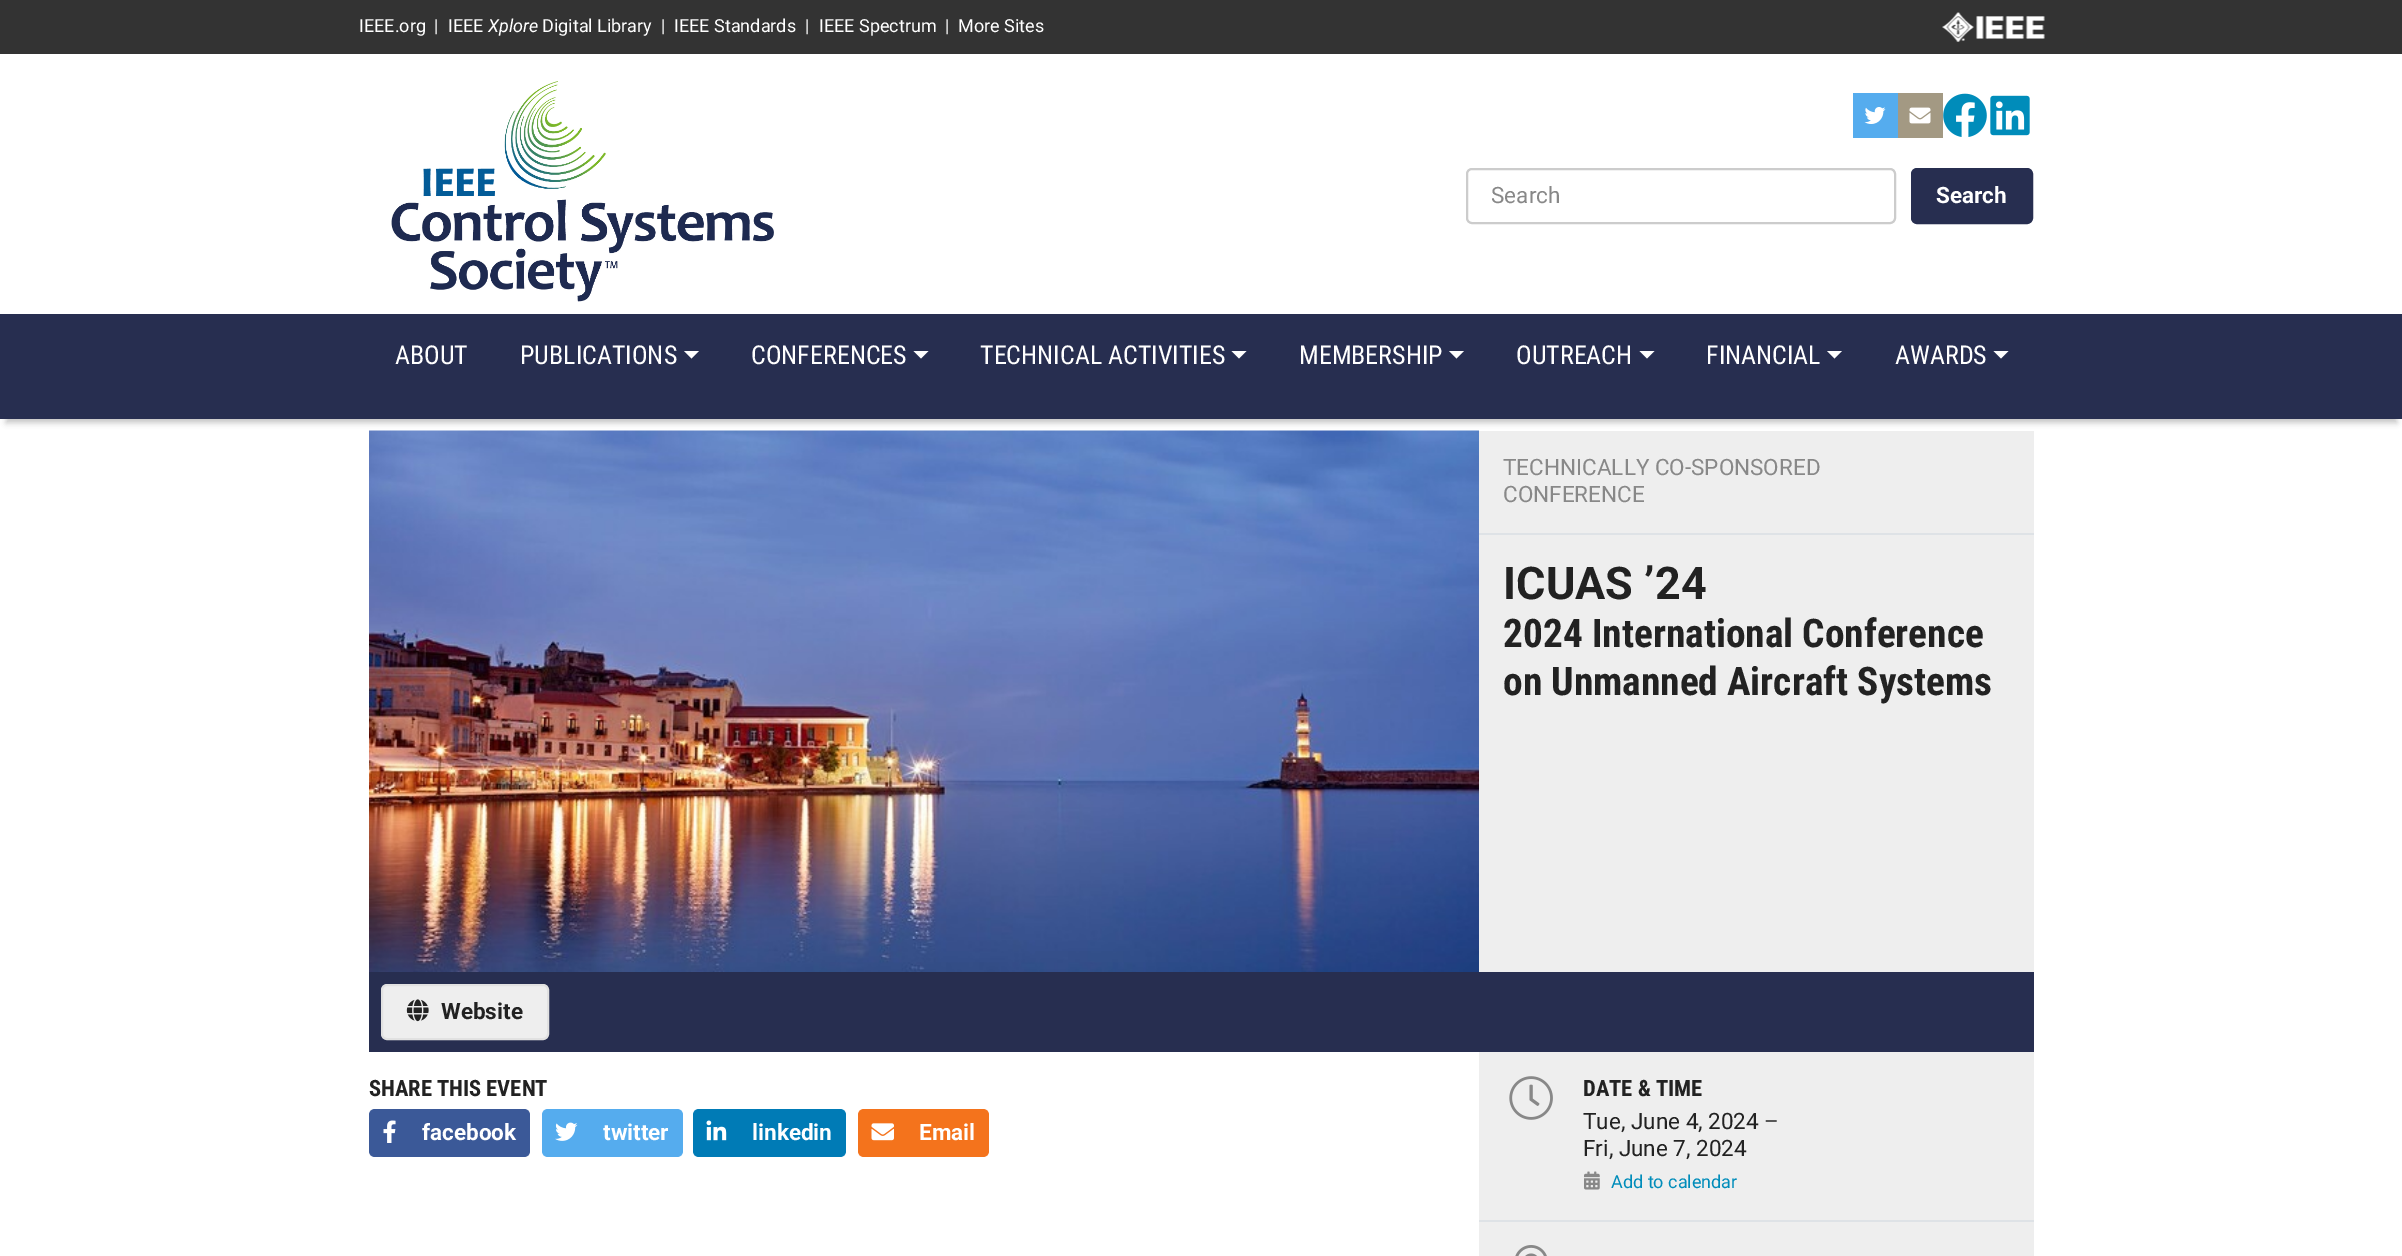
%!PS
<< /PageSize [2402 1256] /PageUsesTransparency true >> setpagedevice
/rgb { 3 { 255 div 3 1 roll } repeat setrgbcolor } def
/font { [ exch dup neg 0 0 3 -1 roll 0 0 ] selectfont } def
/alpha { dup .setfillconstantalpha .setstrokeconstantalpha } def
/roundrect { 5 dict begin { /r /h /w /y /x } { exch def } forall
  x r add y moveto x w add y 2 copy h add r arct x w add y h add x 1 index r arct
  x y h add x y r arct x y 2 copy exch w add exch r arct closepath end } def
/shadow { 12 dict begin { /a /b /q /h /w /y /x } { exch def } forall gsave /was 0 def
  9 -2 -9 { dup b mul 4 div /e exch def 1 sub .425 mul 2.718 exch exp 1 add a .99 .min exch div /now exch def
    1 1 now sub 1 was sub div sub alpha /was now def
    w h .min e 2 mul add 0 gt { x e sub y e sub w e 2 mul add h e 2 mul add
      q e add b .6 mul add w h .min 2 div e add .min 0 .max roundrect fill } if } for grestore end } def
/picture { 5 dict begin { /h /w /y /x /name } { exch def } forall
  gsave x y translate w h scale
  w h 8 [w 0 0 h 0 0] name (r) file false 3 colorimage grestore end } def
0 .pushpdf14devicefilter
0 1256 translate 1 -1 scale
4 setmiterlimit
255 255 255 rgb
0 0 2402 1256 rectfill
51 51 51 rgb
0 0 2402 54 rectfill
(img/1.rgb) 1942 12 103 30 picture
(img/2.rgb) 391 81 383 221 picture
85 172 238 rgb
1853 93 45 45 rectfill
(img/3.rgb) 1864 107 22 17 picture
163 153 131 rgb
1898 93 45 45 rectfill
(img/4.rgb) 1909 107 22 17 picture
(img/5.rgb) 1943 93 44 44 picture
(img/6.rgb) 1990 95 40 41 picture
204 204 204 rgb
2 setlinewidth
1467 169 428 54 5 roundrect stroke
39 46 80 rgb
1912 169 120 54 5 roundrect gsave fill grestore
stroke
(img/7.rgb) 369 430 1110 542 picture
238 238 238 rgb
1479 431 555 541 rectfill
0 0 0 rgb
6 330 2391 93 0 3 0.22 shadow
39 46 80 rgb
0 314 2402 105 rectfill
255 255 255 rgb
684 351 moveto 699 351 lineto 691.5 358.5 lineto closepath fill
913.5 351 moveto 928.5 351 lineto 921 358.5 lineto closepath fill
1231.5 351 moveto 1246.5 351 lineto 1239 358.5 lineto closepath fill
1449 351 moveto 1464 351 lineto 1456.5 358.5 lineto closepath fill
1639.5 351 moveto 1654.5 351 lineto 1647 358.5 lineto closepath fill
1827 351 moveto 1842 351 lineto 1834.5 358.5 lineto closepath fill
1993.5 351 moveto 2008.5 351 lineto 2001 358.5 lineto closepath fill
222 226 230 rgb
1479 533 555 2 rectfill
39 46 80 rgb
369 972 1665 80 rectfill
238 238 238 rgb
382 985 166 54 5 roundrect gsave fill grestore
225 225 225 rgb
stroke
(img/8.rgb) 406 999 23 23 picture
59 89 152 rgb
375 1109 moveto 410 1109 lineto 410 1157 lineto 375 1157 lineto 371.5 1157 369 1154.5 369 1151 curveto 369 1115 lineto 369 1111.5 371.5 1109 375 1109 curveto closepath fill
(img/9.rgb) 383 1120 13 23 picture
408 1109 moveto 524 1109 lineto 527.5 1109 530 1111.5 530 1115 curveto 530 1151 lineto 530 1154.5 527.5 1157 524 1157 curveto 408 1157 lineto closepath fill
85 172 238 rgb
548 1109 moveto 591 1109 lineto 591 1157 lineto 548 1157 lineto 544.5 1157 542 1154.5 542 1151 curveto 542 1115 lineto 542 1111.5 544.5 1109 548 1109 curveto closepath fill
(img/10.rgb) 555 1122 23 19 picture
590 1109 moveto 677 1109 lineto 680.5 1109 683 1111.5 683 1115 curveto 683 1151 lineto 683 1154.5 680.5 1157 677 1157 curveto 590 1157 lineto closepath fill
0 123 182 rgb
699 1109 moveto 740 1109 lineto 740 1157 lineto 699 1157 lineto 695.5 1157 693 1154.5 693 1151 curveto 693 1115 lineto 693 1111.5 695.5 1109 699 1109 curveto closepath fill
(img/11.rgb) 706 1120 21 21 picture
738 1109 moveto 840 1109 lineto 843.5 1109 846 1111.5 846 1115 curveto 846 1151 lineto 846 1154.5 843.5 1157 840 1157 curveto 738 1157 lineto closepath fill
244 115 28 rgb
864 1109 moveto 908 1109 lineto 908 1157 lineto 864 1157 lineto 860.5 1157 858 1154.5 858 1151 curveto 858 1115 lineto 858 1111.5 860.5 1109 864 1109 curveto closepath fill
(img/12.rgb) 871 1123 23 18 picture
906 1109 moveto 983 1109 lineto 986.5 1109 989 1111.5 989 1115 curveto 989 1151 lineto 989 1154.5 986.5 1157 983 1157 curveto 906 1157 lineto closepath fill
238 238 238 rgb
1479 1052 555 204 rectfill
(img/13.rgb) 1509 1076 44 44 picture
(img/14.rgb) 1584 1171 16 19 picture
222 226 230 rgb
1479 1220 555 2 rectfill
(img/15.rgb) 1515 1245 32 11 picture
/Roboto-Regular 18 font
255 255 255 rgb
[
  [(IEEE.org) 359 32]
  [(|) 434 32]
  [(IEEE) 448 32]
] { aload pop moveto show } forall
/Roboto-Italic 18 font
488 32 moveto (Xplore) show
/Roboto-Regular 18 font
[
  [(Digital Library) 542 32]
  [(|) 661 32]
  [(IEEE Standards) 674 32]
  [(|) 805 32]
  [(IEEE Spectrum) 819 32]
  [(|) 945 32]
  [(More Sites) 958 32]
] { aload pop moveto show } forall
/Roboto-Regular 22.5 font
136 136 136 rgb
1491 203 moveto (Search) show
/Roboto-Bold 22.5 font
255 255 255 rgb
1936 203 moveto (Search) show
/RobotoCondensed-Regular 26 font
[
  [(ABOUT) 395 364]
  [(PUBLICATIONS) 520 364]
  [(CONFERENCES) 751 364]
  [(TECHNICAL ACTIVITIES) 980 364]
  [(MEMBERSHIP) 1299 364]
  [(OUTREACH) 1516 364]
  [(FINANCIAL) 1706 364]
  [(AWARDS) 1895 364]
] { aload pop moveto show } forall
/Roboto-Regular 22.5 font
136 136 136 rgb
1503 475 moveto (TECHNICALLY CO-SPONSORED) show
1503 502 moveto (CONFERENCE) show
/Roboto-Bold 45 font
34 34 34 rgb
1503 599 moveto (ICUAS ’24) show
/RobotoCondensed-Bold 39.4 font
1503 647 moveto (2024 International Conference) show
1503 695 moveto (on Unmanned Aircraft Systems) show
/Roboto-Bold 22.5 font
441 1019 moveto (Website) show
/RobotoCondensed-Bold 22.5 font
369 1096 moveto (SHARE THIS EVENT) show
/Roboto-Bold 22.5 font
255 255 255 rgb
[
  [(facebook) 422 1140]
  [(twitter) 603 1140]
  [(linkedin) 752 1140]
  [(Email) 919 1140]
] { aload pop moveto show } forall
/RobotoCondensed-Bold 22.5 font
34 34 34 rgb
1583 1096 moveto (DATE & TIME) show
/Roboto-Regular 22.5 font
1583 1129 moveto (Tue, June 4, 2024 –) show
1583 1156 moveto (Fri, June 7, 2024) show
/Roboto-Regular 18 font
0 140 186 rgb
1611 1188 moveto (Add to calendar) show
.poppdf14devicefilter showpage
